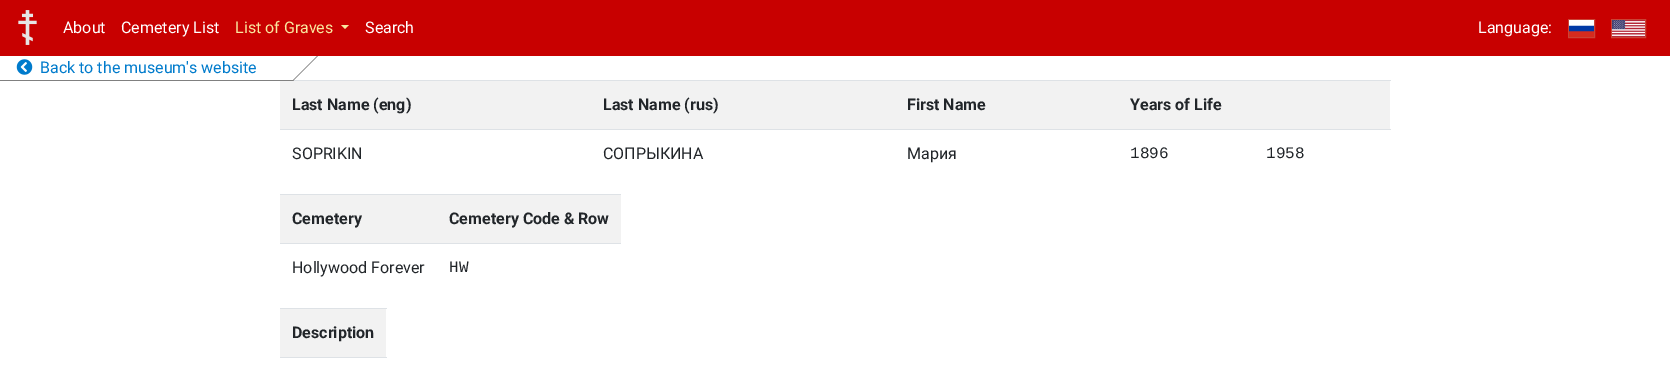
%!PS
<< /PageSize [1670 389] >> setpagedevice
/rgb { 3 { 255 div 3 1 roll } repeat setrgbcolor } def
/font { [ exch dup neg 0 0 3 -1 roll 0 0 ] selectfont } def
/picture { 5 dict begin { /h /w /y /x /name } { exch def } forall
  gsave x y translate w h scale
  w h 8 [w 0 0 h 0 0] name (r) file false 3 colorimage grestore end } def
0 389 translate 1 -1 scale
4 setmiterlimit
255 255 255 rgb
0 0 1670 389 rectfill
200 0 0 rgb
0 0 1670 56 rectfill
(img/1.rgb) 18 10 19 35 picture
249 231 159 rgb
341 25 moveto 349 25 lineto 345 29 lineto closepath fill
203 67 53 rgb
1568.5 19.5 26 18 rectstroke
(img/2.rgb) 1569 20 25 17 picture
1611.5 19.5 34 18 rectstroke
(img/3.rgb) 1612 20 33 17 picture
222 226 230 rgb
293 80 1098 1 rectfill
255 255 255 rgb
12 56 moveto 318 56 lineto 293 81 lineto -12 81 lineto closepath fill
128 128 128 rgb
317 56 moveto 318 56 lineto 293 81 lineto 292 81 lineto closepath fill
-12 80 moveto 294 80 lineto 293 81 lineto -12 81 lineto closepath fill
(img/4.rgb) 16 59 17 16 picture
[
  [280 81 1110 48 242 242 242]
  [280 129 1111 1 222 226 230]
  [280 195 341 48 242 242 242]
  [280 194 341 1 222 226 230]
  [280 243 341 1 222 226 230]
  [280 309 106 48 242 242 242]
  [280 308 107 1 222 226 230]
  [280 357 107 1 222 226 230]
] { aload pop rgb rectfill } forall
/Roboto-Regular 16 font
255 255 255 rgb
63 33 moveto (About) show
121 33 moveto (Cemetery List) show
249 231 159 rgb
235 33 moveto (List of Graves) show
255 255 255 rgb
365 33 moveto (Search) show
1478 33 moveto (Language:) show
0 123 204 rgb
40 73 moveto (Back to the museum's website) show
/Roboto-Bold 16 font
33 37 41 rgb
[
  [(Last Name \(eng\)) 292 110]
  [(Last Name \(rus\)) 603 110]
  [(First Name) 907 110]
  [(Years of Life) 1130 110]
] { aload pop moveto show } forall
/Roboto-Regular 16 font
[
  [(SOPRIKIN) 292 159]
  [(СОПРЫКИНА) 603 159]
  [(Мария) 907 159]
] { aload pop moveto show } forall
/LiberationMono-Regular 16 font
1130 158 moveto (1896) show
1266 158 moveto (1958) show
/Roboto-Bold 16 font
292 224 moveto (Cemetery) show
449 224 moveto (Cemetery Code & Row) show
/Roboto-Regular 16 font
292 273 moveto (Hollywood Forever) show
/LiberationMono-Regular 16 font
449 272 moveto (HW) show
/Roboto-Bold 16 font
292 338 moveto (Description) show
showpage
